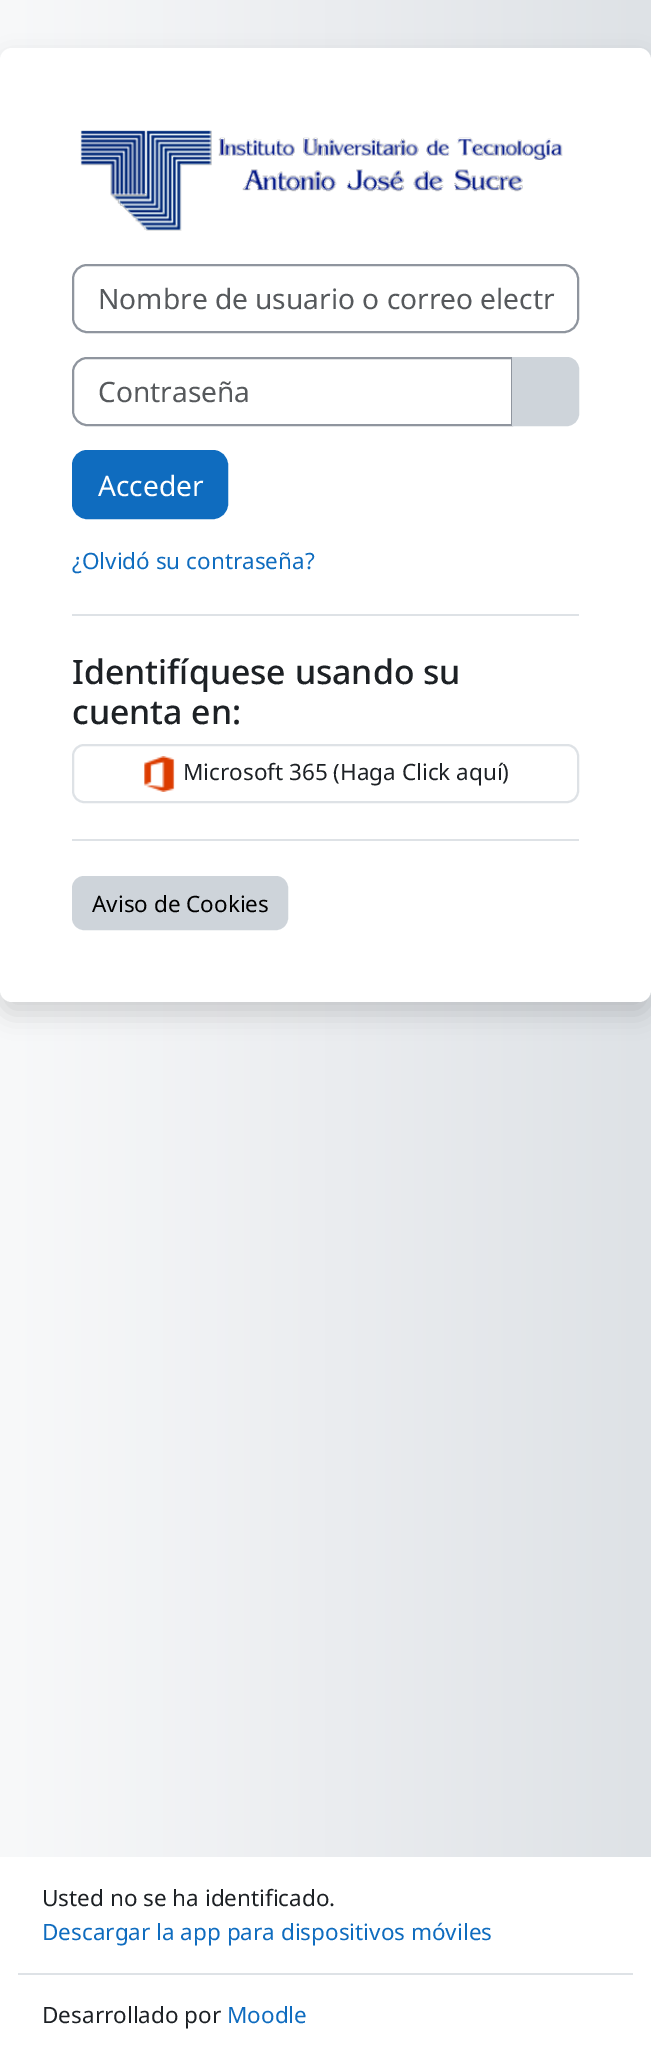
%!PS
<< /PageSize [651 2054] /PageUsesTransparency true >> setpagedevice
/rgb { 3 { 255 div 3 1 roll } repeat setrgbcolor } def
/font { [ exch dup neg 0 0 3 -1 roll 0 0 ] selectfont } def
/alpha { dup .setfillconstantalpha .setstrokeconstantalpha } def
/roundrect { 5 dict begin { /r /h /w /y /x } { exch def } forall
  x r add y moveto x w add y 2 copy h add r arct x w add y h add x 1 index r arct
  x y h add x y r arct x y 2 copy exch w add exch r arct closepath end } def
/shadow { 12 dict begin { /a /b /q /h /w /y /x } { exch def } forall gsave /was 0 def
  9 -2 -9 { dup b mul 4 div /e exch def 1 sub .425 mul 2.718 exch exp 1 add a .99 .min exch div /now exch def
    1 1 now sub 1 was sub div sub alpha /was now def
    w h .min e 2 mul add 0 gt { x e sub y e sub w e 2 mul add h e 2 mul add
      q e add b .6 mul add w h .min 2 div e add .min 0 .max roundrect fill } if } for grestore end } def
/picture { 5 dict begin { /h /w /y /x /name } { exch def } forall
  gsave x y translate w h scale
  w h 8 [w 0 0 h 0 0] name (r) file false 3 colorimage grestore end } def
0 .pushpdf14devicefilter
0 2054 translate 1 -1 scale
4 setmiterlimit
255 255 255 rgb
0 0 651 2054 rectfill
gsave 0 0 moveto 651 0 lineto 651 1857 lineto 0 1857 lineto closepath clip newpath
<< /ShadingType 2 /ColorSpace /DeviceRGB /Coords [0 929 651 929] /Extend [true true] /Function << /FunctionType 2 /Domain [0 1] /C0 [0.973 0.976 0.98] /C1 [0.871 0.886 0.902] /N 1 >> >> shfill grestore
0 0 0 rgb
0 60 651 954 12 12 0.15 shadow
255 255 255 rgb
0 48 651 954 12 roundrect fill
(img/1.rgb) 80 130 483 101 picture
143 149 158 rgb
2 setlinewidth
73 265 505 67 14 roundrect stroke
87 358 moveto 512 358 lineto 512 425 lineto 87 425 lineto 79.5 425 73 418.5 73 411 curveto 73 372 lineto 73 364.5 79.5 358 87 358 curveto closepath stroke
206 212 218 rgb
513 358 moveto 567 358 lineto 573 358 578 363 578 369 curveto 578 414 lineto 578 420 573 425 567 425 curveto 513 425 lineto closepath gsave fill grestore
stroke
15 108 191 rgb
73 451 154 67 14 roundrect gsave fill grestore
stroke
222 226 230 rgb
72 614 507 2 rectfill
73 745 505 57 11 roundrect stroke
(img/2.rgb) 144 756 31 36 picture
72 839 507 2 rectfill
206 212 218 rgb
73 877 214 52 11 roundrect gsave fill grestore
stroke
222 226 230 rgb
18 1973 615 2 rectfill
/NotoSans-Regular 28.1 font
86 89 92 rgb
98 309 moveto (Nombre de usuario o correo electr) show
98 402 moveto (Contraseña) show
255 255 255 rgb
98 496 moveto (Acceder) show
/NotoSans-Regular 22.5 font
15 108 191 rgb
72 569 moveto (¿Olvidó su contraseña?) show
/NotoSans-Medium 33.75 font
29 33 37 rgb
72 684 moveto (Identifíquese usando su) show
72 724 moveto (cuenta en:) show
/NotoSans-Regular 22.5 font
183 780 moveto (Microsoft 365 \(Haga Click aquí\)) show
0 0 0 rgb
92 912 moveto (Aviso de Cookies) show
29 33 37 rgb
42 1906 moveto (Usted no se ha identificado.) show
15 108 191 rgb
42 1940 moveto (Descargar la app para dispositivos móviles) show
29 33 37 rgb
42 2023 moveto (Desarrollado por) show
15 108 191 rgb
227 2023 moveto (Moodle) show
.poppdf14devicefilter showpage
